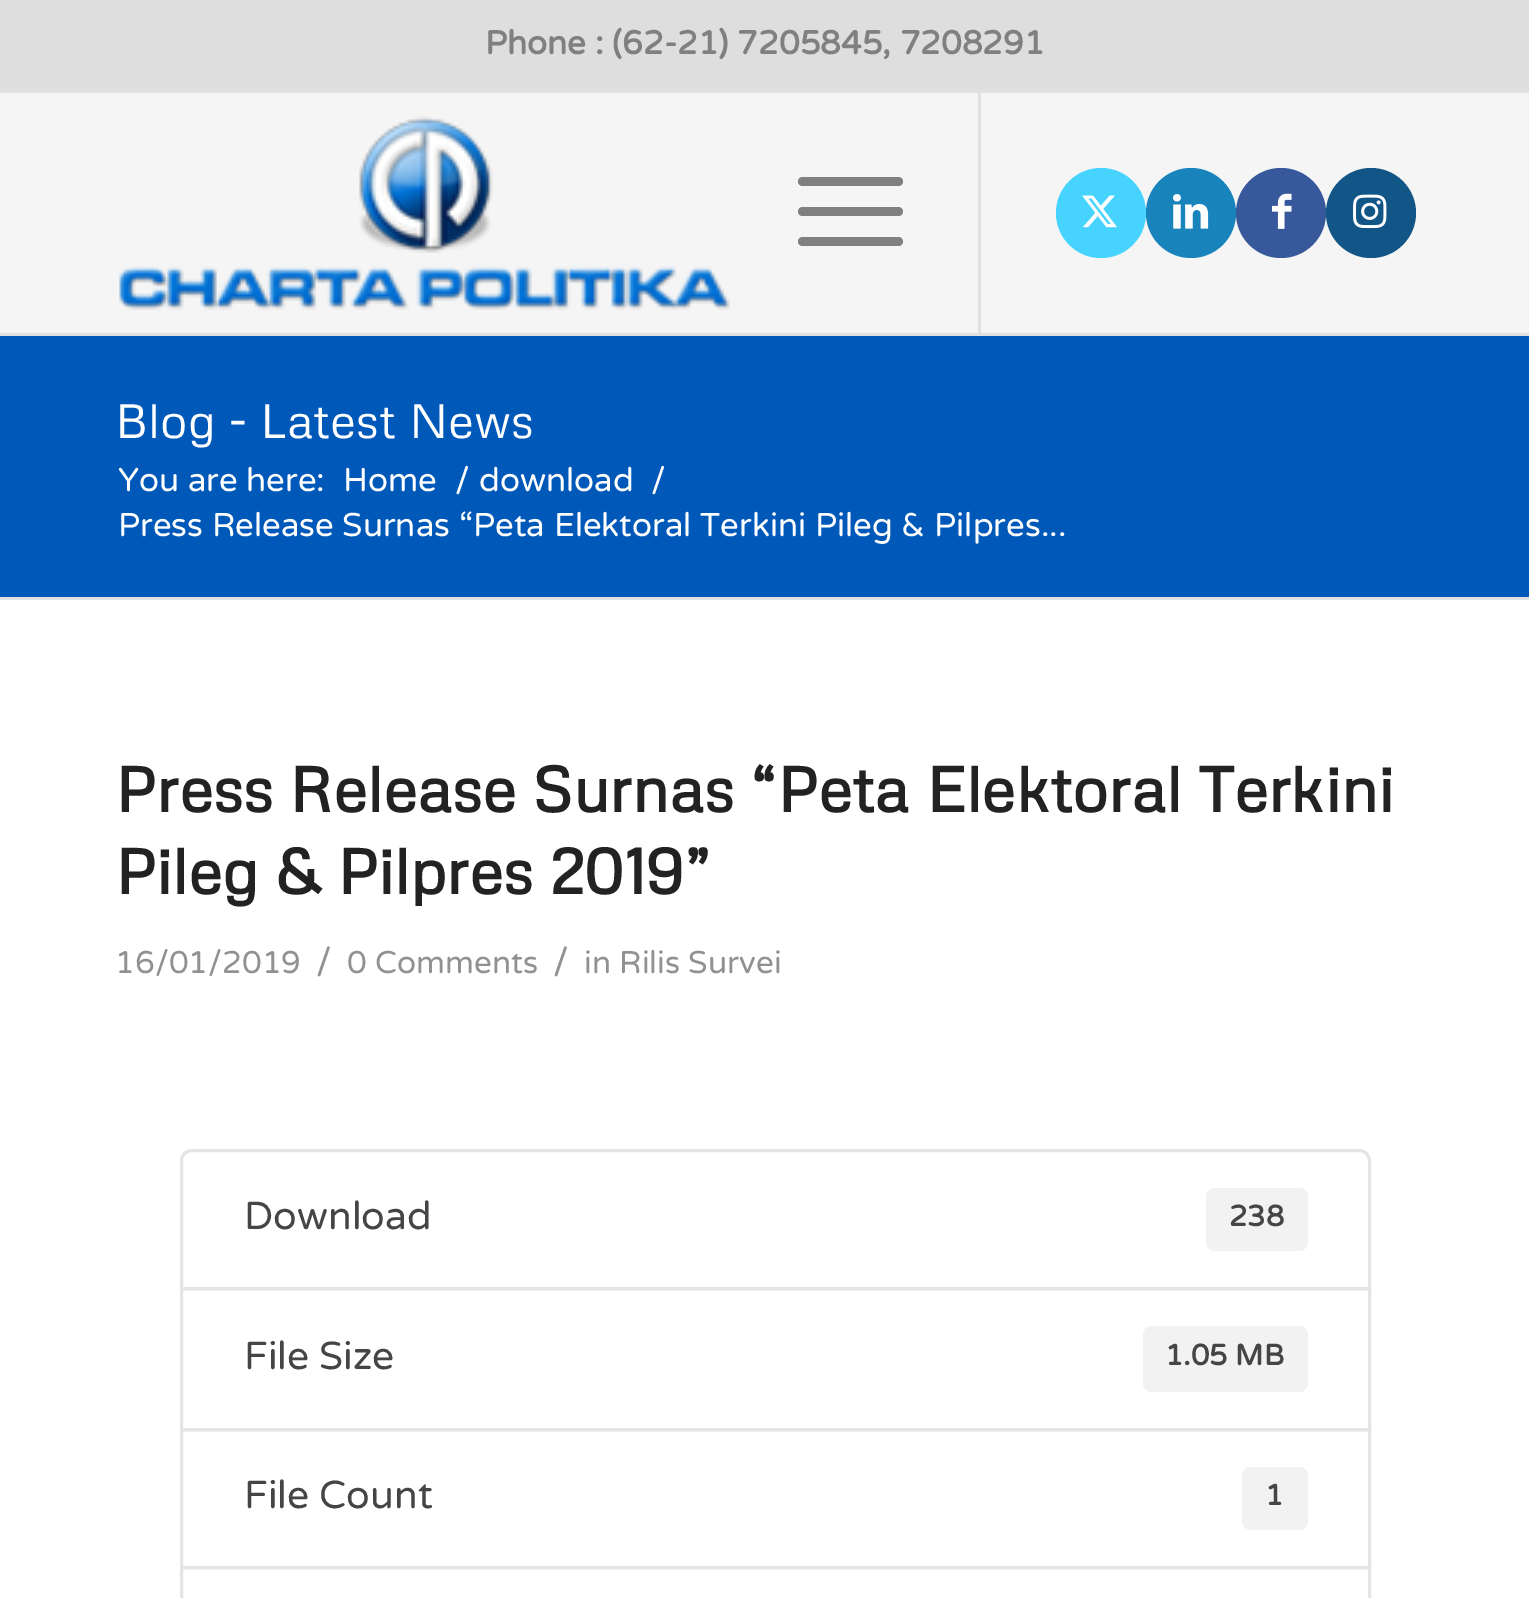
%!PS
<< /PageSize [1529 1598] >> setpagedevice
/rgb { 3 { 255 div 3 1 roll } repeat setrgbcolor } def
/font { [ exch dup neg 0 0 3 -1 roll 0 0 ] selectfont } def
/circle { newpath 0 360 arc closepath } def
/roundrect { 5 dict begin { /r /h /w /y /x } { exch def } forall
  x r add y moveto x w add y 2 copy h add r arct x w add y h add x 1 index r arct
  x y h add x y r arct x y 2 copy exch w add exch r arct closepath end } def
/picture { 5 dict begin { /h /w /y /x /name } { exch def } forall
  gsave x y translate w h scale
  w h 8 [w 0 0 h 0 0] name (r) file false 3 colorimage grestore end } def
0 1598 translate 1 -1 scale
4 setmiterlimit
0 89 185 rgb
0 0 1529 1598 rectfill
[
  [0 0 1529 90 222 222 222]
  [0 90 1529 3 225 225 225]
  [0 93 1529 240 245 245 245]
  [0 333 1529 3 225 225 225]
] { aload pop rgb rectfill } forall
(img/1.rgb) 119 116 611 194 picture
978 93 3 240 rectfill
128 128 128 rgb
798 207 105 9 4.5 roundrect fill
798 177 105 9 4.5 roundrect fill
798 237 105 9 4.5 roundrect fill
70 212 254 rgb
1101 213 45 circle fill
(img/2.rgb) 1082 195 35 33 picture
24 132 187 rgb
1191 213 45 circle fill
(img/3.rgb) 1173 194 36 35 picture
55 88 155 rgb
1281 213 45 circle fill
(img/4.rgb) 1272 193 20 36 picture
18 86 136 rgb
1371 213 45 circle fill
(img/5.rgb) 1353 194 34 35 picture
255 255 255 rgb
0 600 1529 998 rectfill
225 225 225 rgb
0 597 1529 3 rectfill
229 229 229 rgb
3 setlinewidth
192 1150.5 moveto 1359 1150.5 lineto 1365 1150.5 1369.5 1155 1369.5 1161 curveto 1369.5 1288.5 lineto 181.5 1288.5 lineto 181.5 1161 lineto 181.5 1155 186 1150.5 192 1150.5 curveto closepath stroke
242 242 242 rgb
1206 1188 102 63 9 roundrect fill
229 229 229 rgb
181.5 1288.5 1188 141 rectstroke
242 242 242 rgb
1143 1326 165 66 9 roundrect fill
229 229 229 rgb
181.5 1429.5 1188 138 rectstroke
242 242 242 rgb
1242 1467 66 63 9 roundrect fill
229 229 229 rgb
181.5 1567.5 1188 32 rectstroke
/VarelaRound-Bold 33 font
128 128 128 rgb
485 54 moveto (Phone : \(62-21\) 7205845, 7208291) show
/Metrophobic-Regular 48 font
255 255 255 rgb
115 438 moveto (Blog - Latest News) show
/VarelaRound-Regular 33 font
[
  [(You are here:) 118 491]
  [(Home) 343 491]
  [(/) 455 491]
  [(download) 479 491]
  [(/) 651 491]
  [(Press Release Surnas “Peta Elektoral Terkini Pileg & Pilpres...) 118 536]
] { aload pop moveto show } forall
/Metrophobic-Bold 63 font
34 34 34 rgb
115 812 moveto (Press Release Surnas “Peta Elektoral Terkini) show
115 894 moveto (Pileg & Pilpres 2019”) show
/VarelaRound-Regular 31.5 font
145 145 145 rgb
115 973 moveto (16/01/2019) show
/VarelaRound-Regular 35 font
316 973 moveto (/) show
/VarelaRound-Regular 31.5 font
347 973 moveto (0 Comments) show
/VarelaRound-Regular 35 font
553 973 moveto (/) show
/VarelaRound-Regular 31.5 font
584 973 moveto (in Rilis Survei) show
/VarelaRound-Regular 39 font
69 69 69 rgb
244 1229 moveto (Download) show
/VarelaRound-Bold 29.25 font
1229 1226 moveto (238) show
/VarelaRound-Regular 39 font
244 1369 moveto (File Size) show
/VarelaRound-Bold 29.25 font
1165 1365 moveto (1.05 MB) show
/VarelaRound-Regular 39 font
244 1508 moveto (File Count) show
/VarelaRound-Bold 29.25 font
1265 1505 moveto (1) show
showpage
